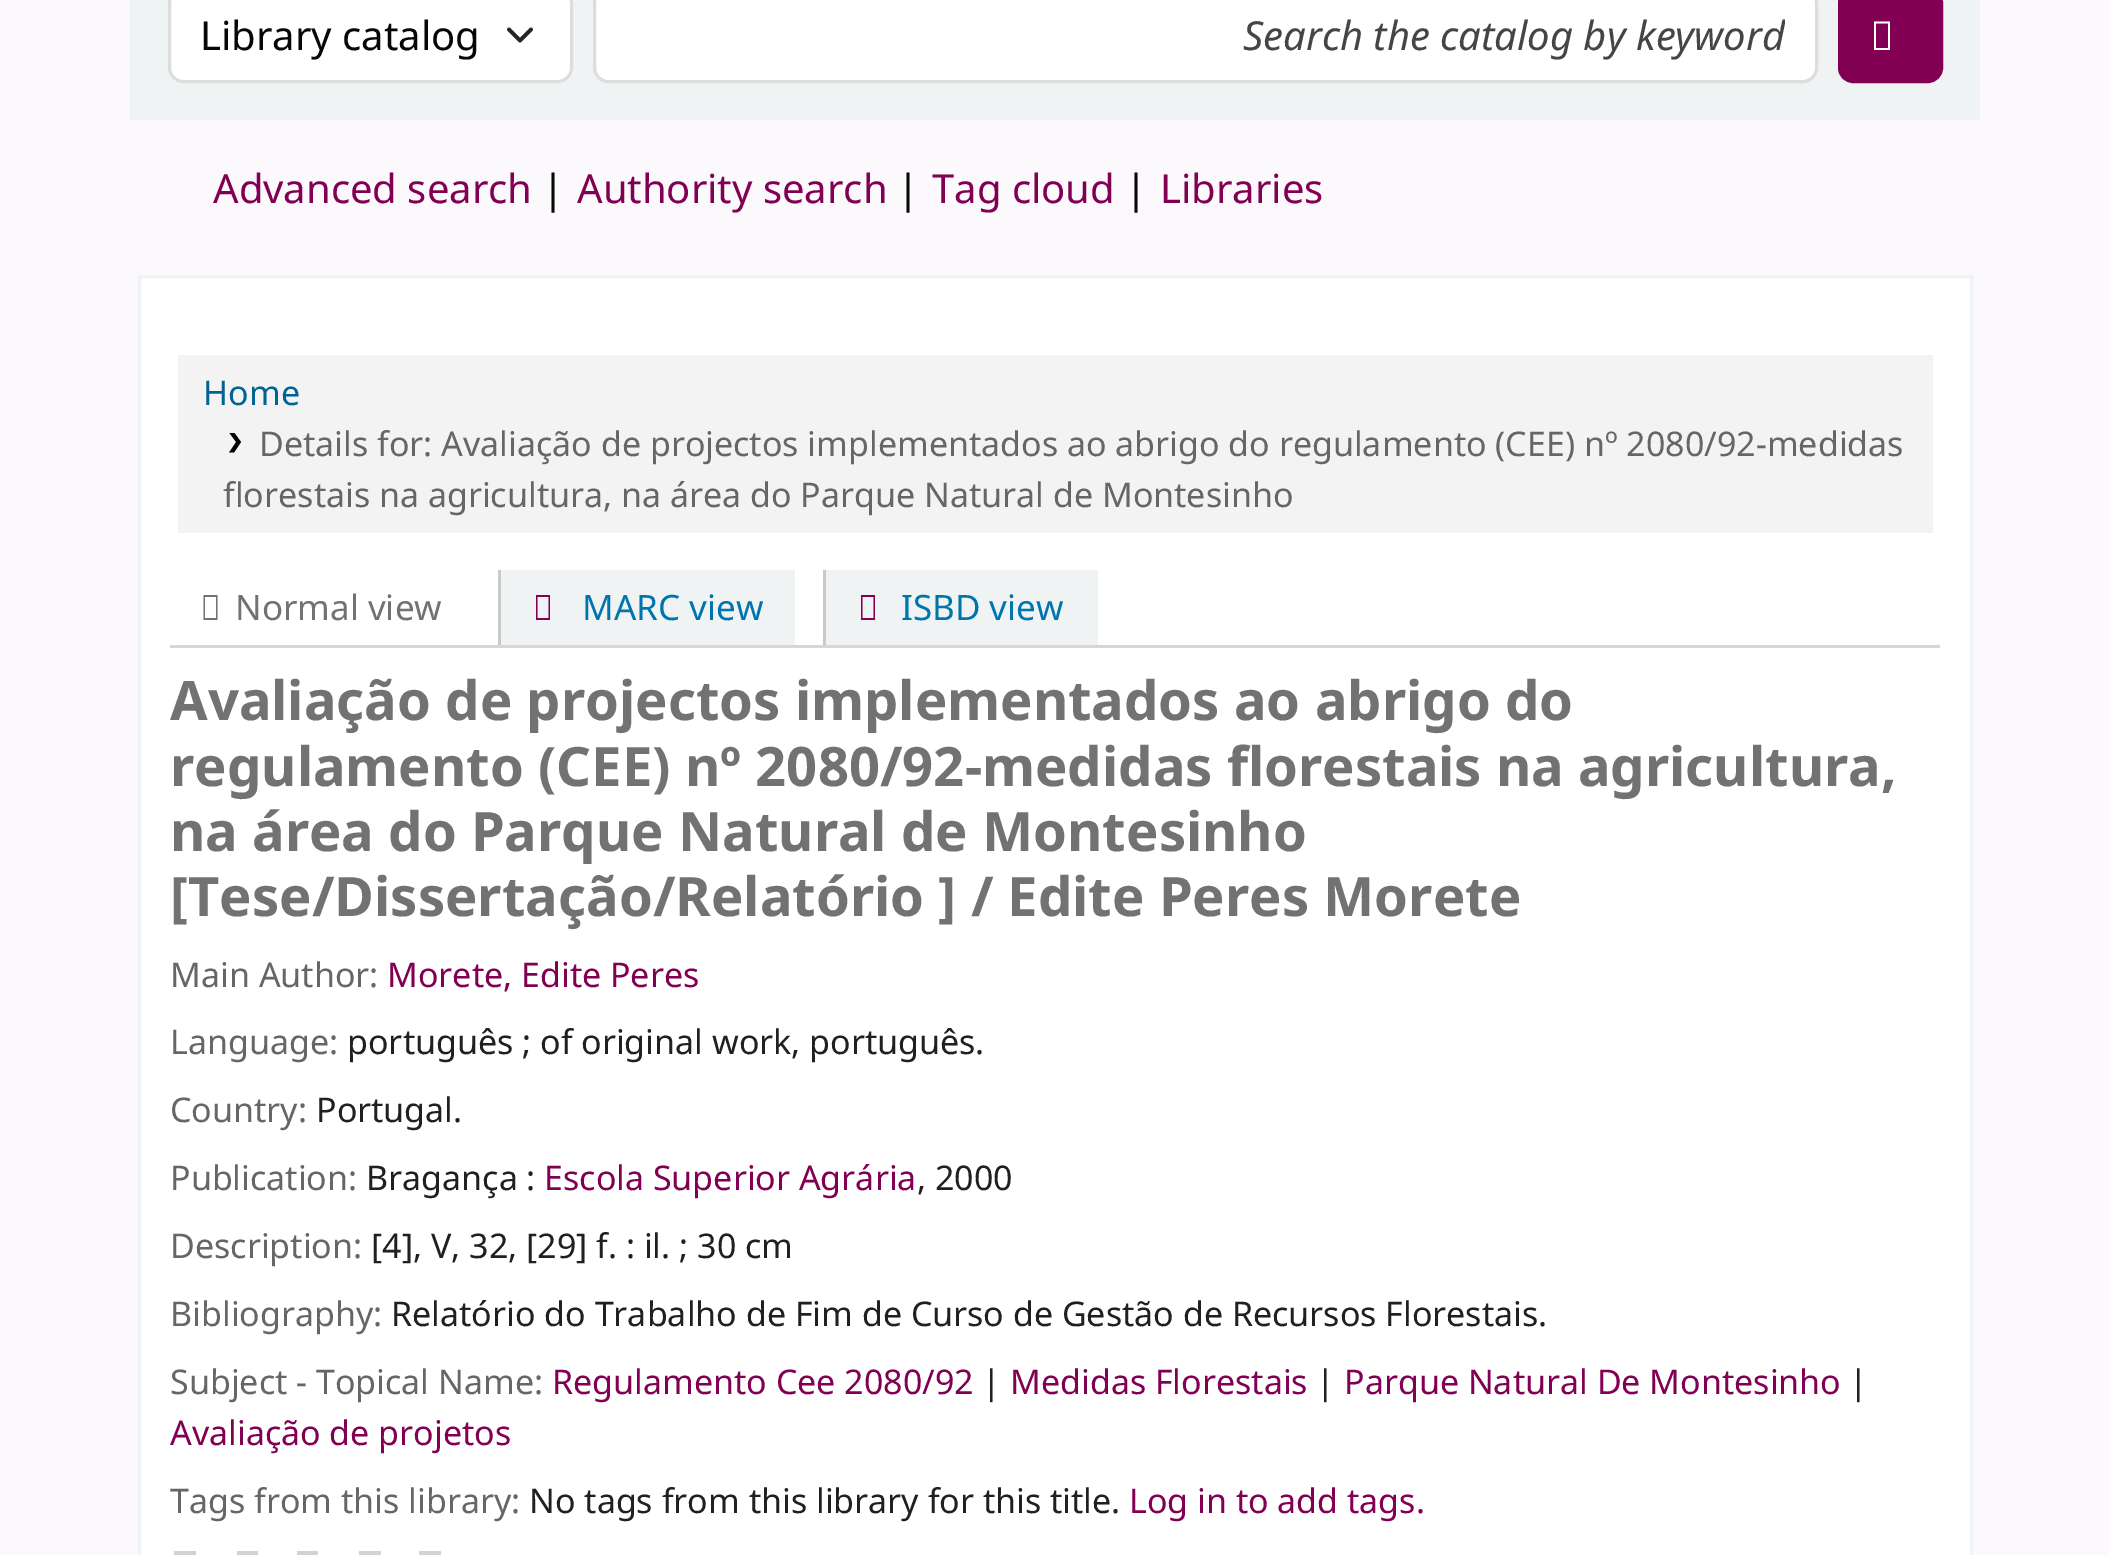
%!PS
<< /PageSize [2110 1555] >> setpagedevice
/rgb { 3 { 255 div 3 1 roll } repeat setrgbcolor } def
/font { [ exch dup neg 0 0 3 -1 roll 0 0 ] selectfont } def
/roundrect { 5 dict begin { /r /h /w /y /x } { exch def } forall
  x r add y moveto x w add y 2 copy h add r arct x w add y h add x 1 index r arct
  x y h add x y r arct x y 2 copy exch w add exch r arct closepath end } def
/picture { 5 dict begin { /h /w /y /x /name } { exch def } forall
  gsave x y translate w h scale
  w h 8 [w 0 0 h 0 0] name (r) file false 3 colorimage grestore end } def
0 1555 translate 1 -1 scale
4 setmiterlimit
252 249 252 rgb
0 0 2110 1555 rectfill
240 243 243 rgb
130 0 1850 120 rectfill
255 255 255 rgb
168 -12 405 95 15 roundrect fill
37 37 37 rgb
3.8 setlinewidth
1 setlinecap
1 setlinejoin
509 29.5 moveto 520 40.5 lineto 531 29.5 lineto stroke
221 221 221 rgb
3 setlinewidth
0 setlinecap
0 setlinejoin
169.5 -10.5 402 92 13.5 roundrect stroke
255 255 255 rgb
594.5 -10.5 1222 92 13.5 roundrect gsave fill grestore
221 221 221 rgb
stroke
130 0 83 rgb
1839.5 -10.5 102 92 13.5 roundrect gsave fill grestore
stroke
255 255 255 rgb
1874 50 moveto 1874 21.5 lineto 1890 21.5 lineto 1890 50 lineto closepath 1876 48 moveto 1888 48 lineto 1888 23.5 lineto 1876 23.5 lineto closepath fill
139.5 276.5 moveto 1971.5 276.5 lineto 1971.5 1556.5 lineto 139.5 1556.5 lineto closepath gsave fill grestore
240 243 243 rgb
stroke
243 243 243 rgb
178 355 1755 178 rectfill
(img/1.rgb) 229 433 12 20 picture
214 214 214 rgb
170 645 1770 3 rectfill
114 114 114 rgb
203.5 620 moveto 203.5 595 lineto 217.5 595 lineto 217.5 620 lineto closepath 205 618 moveto 216 618 lineto 216 597 lineto 205 597 lineto closepath fill
240 243 243 rgb
501 570 294 75 rectfill
201 201 201 rgb
498 570 3 75 rectfill
130 0 83 rgb
536 620 moveto 536 595 lineto 550 595 lineto 550 620 lineto closepath 537.5 618 moveto 548.5 618 lineto 548.5 597 lineto 537.5 597 lineto closepath fill
240 243 243 rgb
826 570 272 75 rectfill
201 201 201 rgb
823 570 3 75 rectfill
130 0 83 rgb
861 620 moveto 861 595 lineto 875 595 lineto 875 620 lineto closepath 862.5 618 moveto 873.5 618 lineto 873.5 597 lineto 862.5 597 lineto closepath fill
[
  [174 1551 22 4 210 210 210]
  [237 1551 21 4 210 210 210]
  [297 1551 21 4 210 210 210]
  [359 1551 22 4 210 210 210]
  [419 1551 22 4 210 210 210]
] { aload pop rgb rectfill } forall
/NotoSans-Regular 40 font
7 7 7 rgb
200 50 moveto (Library catalog) show
gsave
625 8 1160 55 rectclip
/NotoSans-Italic 40 font
69 69 69 rgb
1243 50 moveto (Search the catalog by keyword) show
grestore
130 0 83 rgb
213 203 moveto (Advanced search) show
7 7 7 rgb
542 203 moveto (|) show
130 0 83 rgb
577 203 moveto (Authority search) show
7 7 7 rgb
897 203 moveto (|) show
130 0 83 rgb
932 203 moveto (Tag cloud) show
7 7 7 rgb
1125 203 moveto (|) show
130 0 83 rgb
1160 203 moveto (Libraries) show
/NotoSans-Regular 34 font
0 99 148 rgb
203 405 moveto (Home) show
102 102 102 rgb
259 456 moveto (Details for: Avaliação de projectos implementados ao abrigo do regulamento \(CEE\) nº 2080/92-medidas) show
223 507 moveto (florestais na agricultura, na área do Parque Natural de Montesinho) show
/NotoSans-Regular 35 font
114 114 114 rgb
235 620 moveto (Normal view) show
0 116 173 rgb
582 620 moveto (MARC view) show
901 620 moveto (ISBD view) show
/NotoSans-Bold 54.4 font
114 114 114 rgb
[
  [(Avaliação de projectos implementados ao abrigo do) 170 720]
  [(regulamento \(CEE\) nº 2080/92-medidas florestais na agricultura,) 170 786]
  [(na área do Parque Natural de Montesinho) 170 851]
  [([Tese/Dissertação/Relatório ] / Edite Peres Morete) 170 916]
] { aload pop moveto show } forall
/NotoSans-Regular 34 font
102 102 102 rgb
170 987 moveto (Main Author:) show
130 0 83 rgb
387 987 moveto (Morete, Edite Peres) show
102 102 102 rgb
170 1054 moveto (Language:) show
32 32 32 rgb
347 1054 moveto (português ; of original work, português.) show
102 102 102 rgb
170 1122 moveto (Country:) show
32 32 32 rgb
316 1122 moveto (Portugal.) show
102 102 102 rgb
170 1190 moveto (Publication:) show
32 32 32 rgb
366 1190 moveto (Bragança :) show
130 0 83 rgb
544 1190 moveto (Escola Superior Agrária) show
32 32 32 rgb
917 1190 moveto (, 2000) show
102 102 102 rgb
170 1258 moveto (Description:) show
32 32 32 rgb
371 1258 moveto ([4], V, 32, [29] f. : il. ; 30 cm) show
102 102 102 rgb
170 1326 moveto (Bibliography:) show
32 32 32 rgb
391 1326 moveto (Relatório do Trabalho de Fim de Curso de Gestão de Recursos Florestais.) show
102 102 102 rgb
170 1394 moveto (Subject - Topical Name:) show
130 0 83 rgb
552 1394 moveto (Regulamento Cee 2080/92) show
32 32 32 rgb
982 1394 moveto (|) show
130 0 83 rgb
1010 1394 moveto (Medidas Florestais) show
32 32 32 rgb
1316 1394 moveto (|) show
130 0 83 rgb
1344 1394 moveto (Parque Natural De Montesinho) show
32 32 32 rgb
1849 1394 moveto (|) show
130 0 83 rgb
170 1445 moveto (Avaliação de projetos) show
102 102 102 rgb
170 1513 moveto (Tags from this library:) show
32 32 32 rgb
529 1513 moveto (No tags from this library for this title.) show
130 0 83 rgb
1129 1513 moveto (Log in to add tags.) show
showpage
